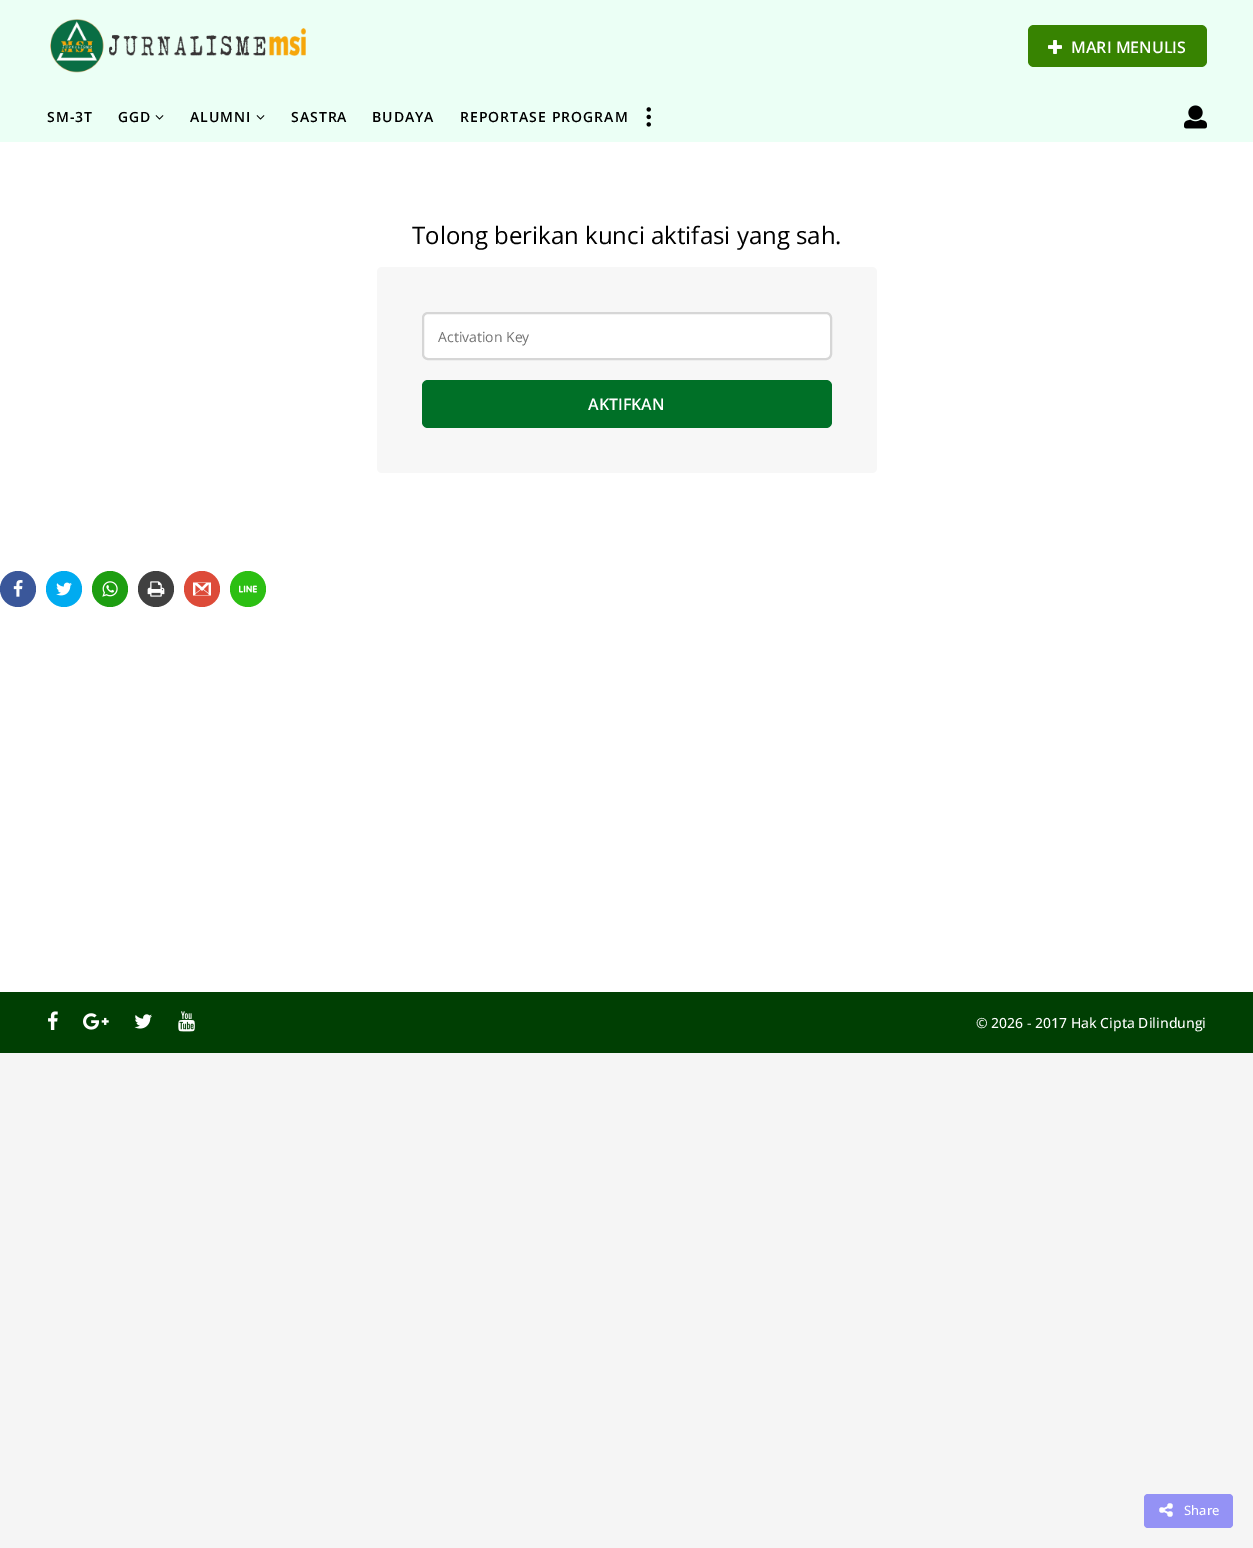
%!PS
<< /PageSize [1253 1548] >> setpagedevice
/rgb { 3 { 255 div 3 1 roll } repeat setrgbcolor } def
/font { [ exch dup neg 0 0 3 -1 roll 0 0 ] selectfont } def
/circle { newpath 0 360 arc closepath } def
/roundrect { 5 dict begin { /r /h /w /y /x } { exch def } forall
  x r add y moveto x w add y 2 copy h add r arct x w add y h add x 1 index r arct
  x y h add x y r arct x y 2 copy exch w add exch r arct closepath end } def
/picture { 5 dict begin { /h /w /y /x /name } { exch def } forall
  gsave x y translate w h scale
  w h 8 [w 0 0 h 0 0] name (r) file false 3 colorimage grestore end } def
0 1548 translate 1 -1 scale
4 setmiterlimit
245 245 245 rgb
0 0 1253 1548 rectfill
255 255 255 rgb
0 142 1253 850 rectfill
235 255 245 rgb
0 0 1253 142 rectfill
(img/1.rgb) 50 19 256 54 picture
55 131 1 rgb
1028 25 179 42 6 roundrect fill
(img/2.rgb) 1048 40 14 14 picture
(img/3.rgb) 155 115 9 5 picture
(img/3.rgb) 256 115 9 5 picture
(img/4.rgb) 646 107 5 20 picture
(img/5.rgb) 1184 105 23 24 picture
247 247 247 rgb
377 267 500 206 5 roundrect fill
255 255 255 rgb
423 313 408 46 5 roundrect gsave fill grestore
214 214 214 rgb
2 setlinewidth
stroke
0 112 39 rgb
422 380 410 48 6 roundrect fill
58 87 154 rgb
18 589 18 circle fill
(img/6.rgb) 13 580 10 17 picture
0 171 240 rgb
64 589 18 circle fill
(img/7.rgb) 56 582 16 14 picture
29 158 17 rgb
110 589 18 circle fill
(img/8.rgb) 102 581 16 16 picture
64 64 64 rgb
156 589 18 circle fill
(img/9.rgb) 147 581 18 16 picture
221 75 57 rgb
202 589 18 circle fill
(img/10.rgb) 193 582 18 14 picture
44 191 19 rgb
248 589 18 circle fill
(img/11.rgb) 239 585 18 8 picture
0 63 3 rgb
0 992 1253 61 rectfill
(img/12.rgb) 48 1011 10 19 picture
(img/13.rgb) 83 1013 26 17 picture
(img/14.rgb) 134 1014 18 15 picture
(img/15.rgb) 178 1011 17 21 picture
148 146 245 rgb
1144 1494 89 34 4 roundrect fill
/OpenSans-SemiBold 16 font
255 255 255 rgb
1071 53 moveto (MARI MENULIS) show
/OpenSans-SemiBold 14 font
0 0 0 rgb
47 122 moveto 1 0 (SM-3T) ashow
118 122 moveto 1 0 (GGD) ashow
190 122 moveto 1 0 (ALUMNI) ashow
291 122 moveto 1 0 (SASTRA) ashow
372 122 moveto 1 0 (BUDAYA) ashow
460 122 moveto 1 0 (REPORTASE PROGRAM) ashow
/OpenSans-Regular 24 font
412 244 moveto (Tolong berikan kunci aktifasi yang sah.) show
/OpenSans-Regular 14 font
114 114 114 rgb
438 342 moveto (Activation Key) show
/OpenSans-SemiBold 16 font
255 255 255 rgb
588 410 moveto (AKTIFKAN) show
/OpenSans-Medium 14 font
976 1028 moveto (© 2026 - 2017 Hak Cipta Dilindungi) show
/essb-Regular 16 font
1158 1518 moveto (6) show
/OpenSans-Medium 13 font
1184 1515 moveto (Share) show
showpage
